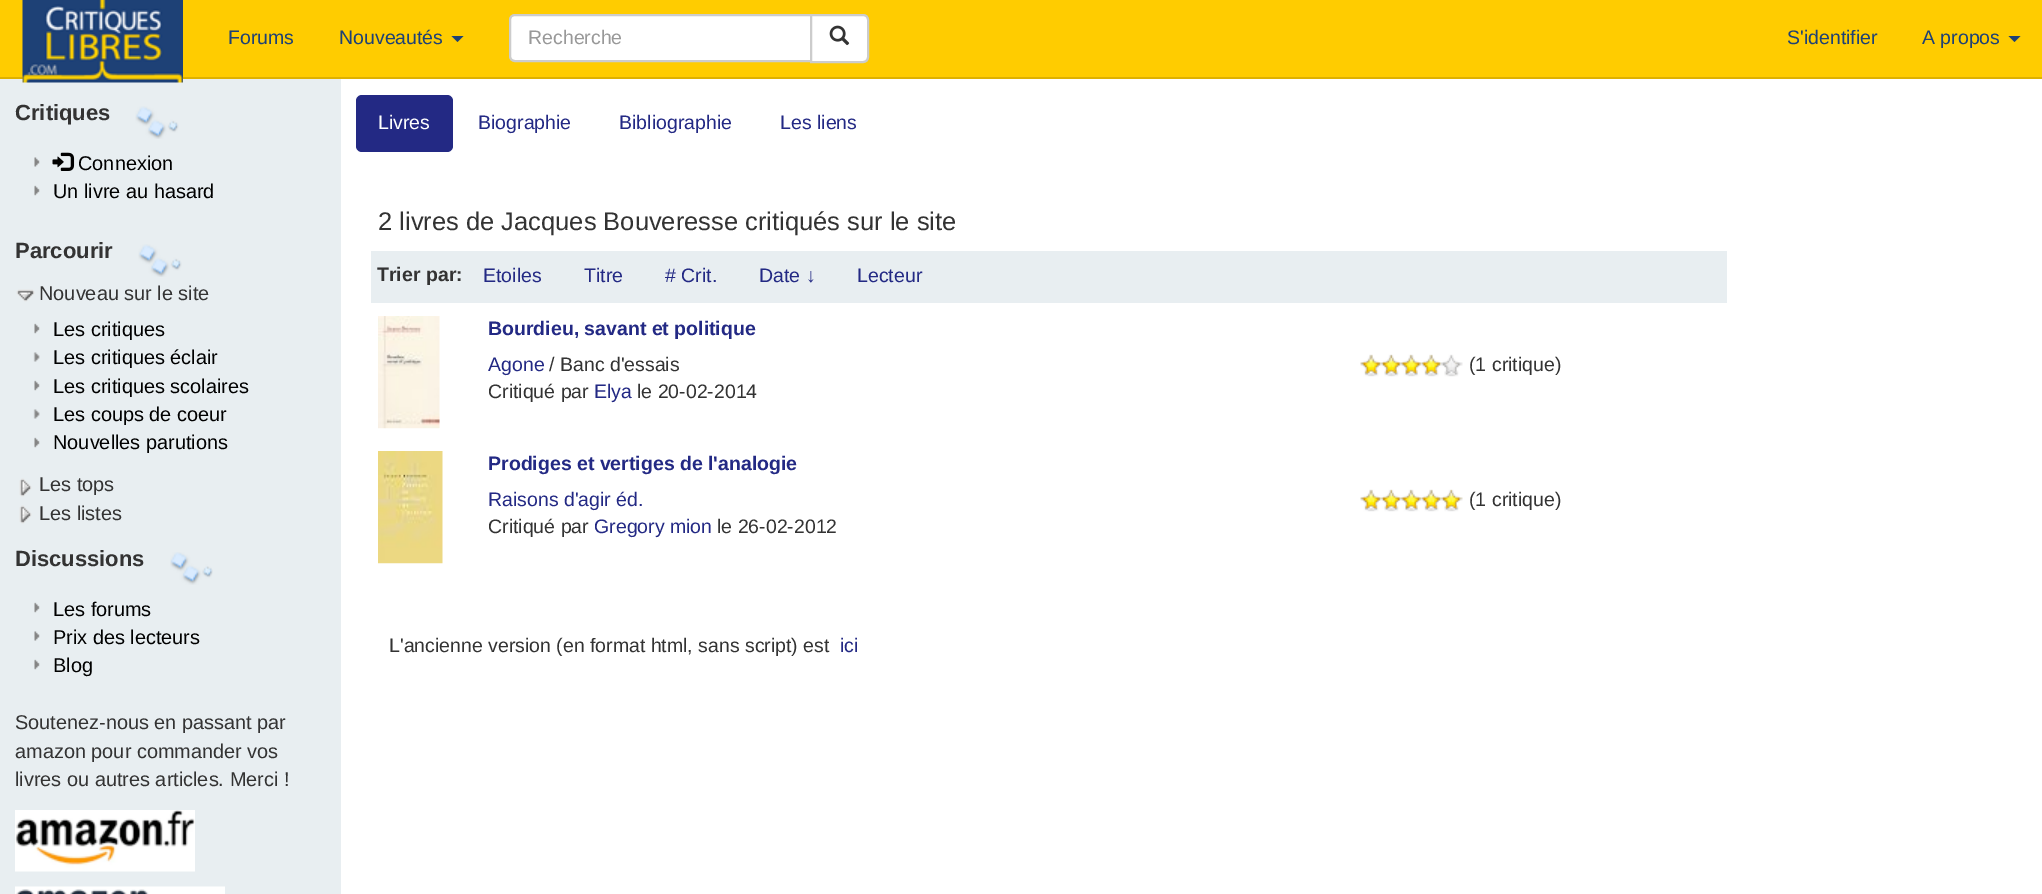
%!PS
<< /PageSize [2042 894] >> setpagedevice
/rgb { 3 { 255 div 3 1 roll } repeat setrgbcolor } def
/font { [ exch dup neg 0 0 3 -1 roll 0 0 ] selectfont } def
/roundrect { 5 dict begin { /r /h /w /y /x } { exch def } forall
  x r add y moveto x w add y 2 copy h add r arct x w add y h add x 1 index r arct
  x y h add x y r arct x y 2 copy exch w add exch r arct closepath end } def
/picture { 5 dict begin { /h /w /y /x /name } { exch def } forall
  gsave x y translate w h scale
  w h 8 [w 0 0 h 0 0] name (r) file false 3 colorimage grestore end } def
0 894 translate 1 -1 scale
4 setmiterlimit
255 255 255 rgb
0 0 2042 894 rectfill
[
  [0 0 2042 77 255 204 0]
  [0 77 2042 2 222 177 0]
  [0 79 341 815 232 238 241]
] { aload pop rgb rectfill } forall
(img/1.rgb) 22 0 161 83 picture
30 65 118 rgb
451.5 36 moveto 463.5 36 lineto 457.5 42 lineto closepath fill
255 255 255 rgb
515 15 moveto 811 15 lineto 811 61 lineto 515 61 lineto 512 61 510 59 510 56 curveto 510 20 lineto 510 17 512 15 515 15 curveto closepath gsave fill grestore
204 204 204 rgb
2 setlinewidth
stroke
255 255 255 rgb
811 15 moveto 863 15 lineto 866 15 868 17 868 20 curveto 868 57 lineto 868 60 866 62 863 62 curveto 811 62 lineto closepath gsave fill grestore
204 204 204 rgb
stroke
(img/2.rgb) 829 25 21 21 picture
30 65 118 rgb
2008.5 36 moveto 2020.5 36 lineto 2014.5 42 lineto closepath fill
(img/3.rgb) 135 106 44 33 picture
(img/4.rgb) 34 157 6 10 picture
(img/5.rgb) 52 152 23 19 picture
(img/6.rgb) 34 185 6 11 picture
(img/3.rgb) 138 244 44 33 picture
(img/7.rgb) 16 289 19 13 picture
(img/6.rgb) 34 323 6 11 picture
(img/8.rgb) 33 352 7 10 picture
(img/6.rgb) 34 380 6 11 picture
(img/8.rgb) 33 409 7 10 picture
(img/6.rgb) 34 437 6 11 picture
(img/9.rgb) 19 478 13 19 picture
(img/9.rgb) 19 505 13 19 picture
(img/10.rgb) 170 552 43 33 picture
(img/6.rgb) 34 602 6 11 picture
(img/4.rgb) 34 631 6 10 picture
(img/6.rgb) 34 659 6 11 picture
(img/11.rgb) 15 810 180 62 picture
(img/12.rgb) 15 886 210 8 picture
35 41 132 rgb
356 95 97 57 6 roundrect fill
232 238 241 rgb
371 251 1356 52 rectfill
(img/13.rgb) 378 316 62 113 picture
(img/14.rgb) 1360 354 103 23 picture
(img/15.rgb) 378 451 65 113 picture
(img/16.rgb) 1360 489 103 23 picture
/LiberationSans-Regular 19.5 font
30 65 118 rgb
228 44 moveto (Forums) show
339 44 moveto (Nouveautés) show
153 153 153 rgb
528 44 moveto (Recherche) show
30 65 118 rgb
1787 44 moveto (S'identifier) show
1922 44 moveto (A propos) show
/LiberationSans-Bold 22 font
51 51 51 rgb
15 120 moveto (Critiques) show
/LiberationSans-Regular 19.9 font
0 0 0 rgb
78 170 moveto (Connexion) show
53 198 moveto (Un livre au hasard) show
/LiberationSans-Bold 22 font
51 51 51 rgb
15 258 moveto (Parcourir) show
/LiberationSans-Regular 19.9 font
39 300 moveto (Nouveau sur le site) show
0 0 0 rgb
[
  [(Les critiques) 53 336]
  [(Les critiques éclair) 53 364]
  [(Les critiques scolaires) 53 393]
  [(Les coups de coeur) 53 421]
  [(Nouvelles parutions) 53 449]
] { aload pop moveto show } forall
51 51 51 rgb
39 491 moveto (Les tops) show
39 520 moveto (Les listes) show
/LiberationSans-Bold 22 font
15 566 moveto (Discussions) show
/LiberationSans-Regular 19.9 font
0 0 0 rgb
[
  [(Les forums) 53 616]
  [(Prix des lecteurs) 53 644]
  [(Blog) 53 672]
] { aload pop moveto show } forall
51 51 51 rgb
[
  [(Soutenez-nous en passant par) 15 729]
  [(amazon pour commander vos) 15 758]
  [(livres ou autres articles. Merci !) 15 786]
] { aload pop moveto show } forall
/LiberationSans-Regular 19.5 font
255 255 255 rgb
378 129 moveto (Livres) show
35 41 132 rgb
[
  [(Biographie) 478 129]
  [(Bibliographie) 619 129]
  [(Les liens) 780 129]
] { aload pop moveto show } forall
/LiberationSans-Regular 25.5 font
51 51 51 rgb
378 230 moveto (2 livres de Jacques Bouveresse critiqués sur le site) show
/LiberationSans-Bold 19.5 font
377 281 moveto (Trier par:) show
/LiberationSans-Regular 19.5 font
35 41 132 rgb
[
  [(Etoiles) 483 282]
  [(Titre) 584 282]
  [(# Crit.) 665 282]
  [(Date ↓) 759 282]
  [(Lecteur) 857 282]
] { aload pop moveto show } forall
/LiberationSans-Bold 19.5 font
488 335 moveto (Bourdieu, savant et politique) show
/LiberationSans-Regular 19.5 font
488 371 moveto (Agone) show
51 51 51 rgb
549 371 moveto (/ Banc d'essais) show
488 398 moveto (Critiqué par) show
35 41 132 rgb
594 398 moveto (Elya) show
51 51 51 rgb
637 398 moveto (le 20-02-2014) show
1469 371 moveto (\(1 critique\)) show
/LiberationSans-Bold 19.5 font
35 41 132 rgb
488 470 moveto (Prodiges et vertiges de l'analogie) show
/LiberationSans-Regular 19.5 font
488 506 moveto (Raisons d'agir éd.) show
51 51 51 rgb
488 533 moveto (Critiqué par) show
35 41 132 rgb
594 533 moveto (Gregory mion) show
51 51 51 rgb
[
  [(le 26-02-2012) 717 533]
  [(\(1 critique\)) 1469 506]
  [(L'ancienne version \(en format html, sans script\) est) 389 652]
] { aload pop moveto show } forall
35 41 132 rgb
840 652 moveto (ici) show
showpage
